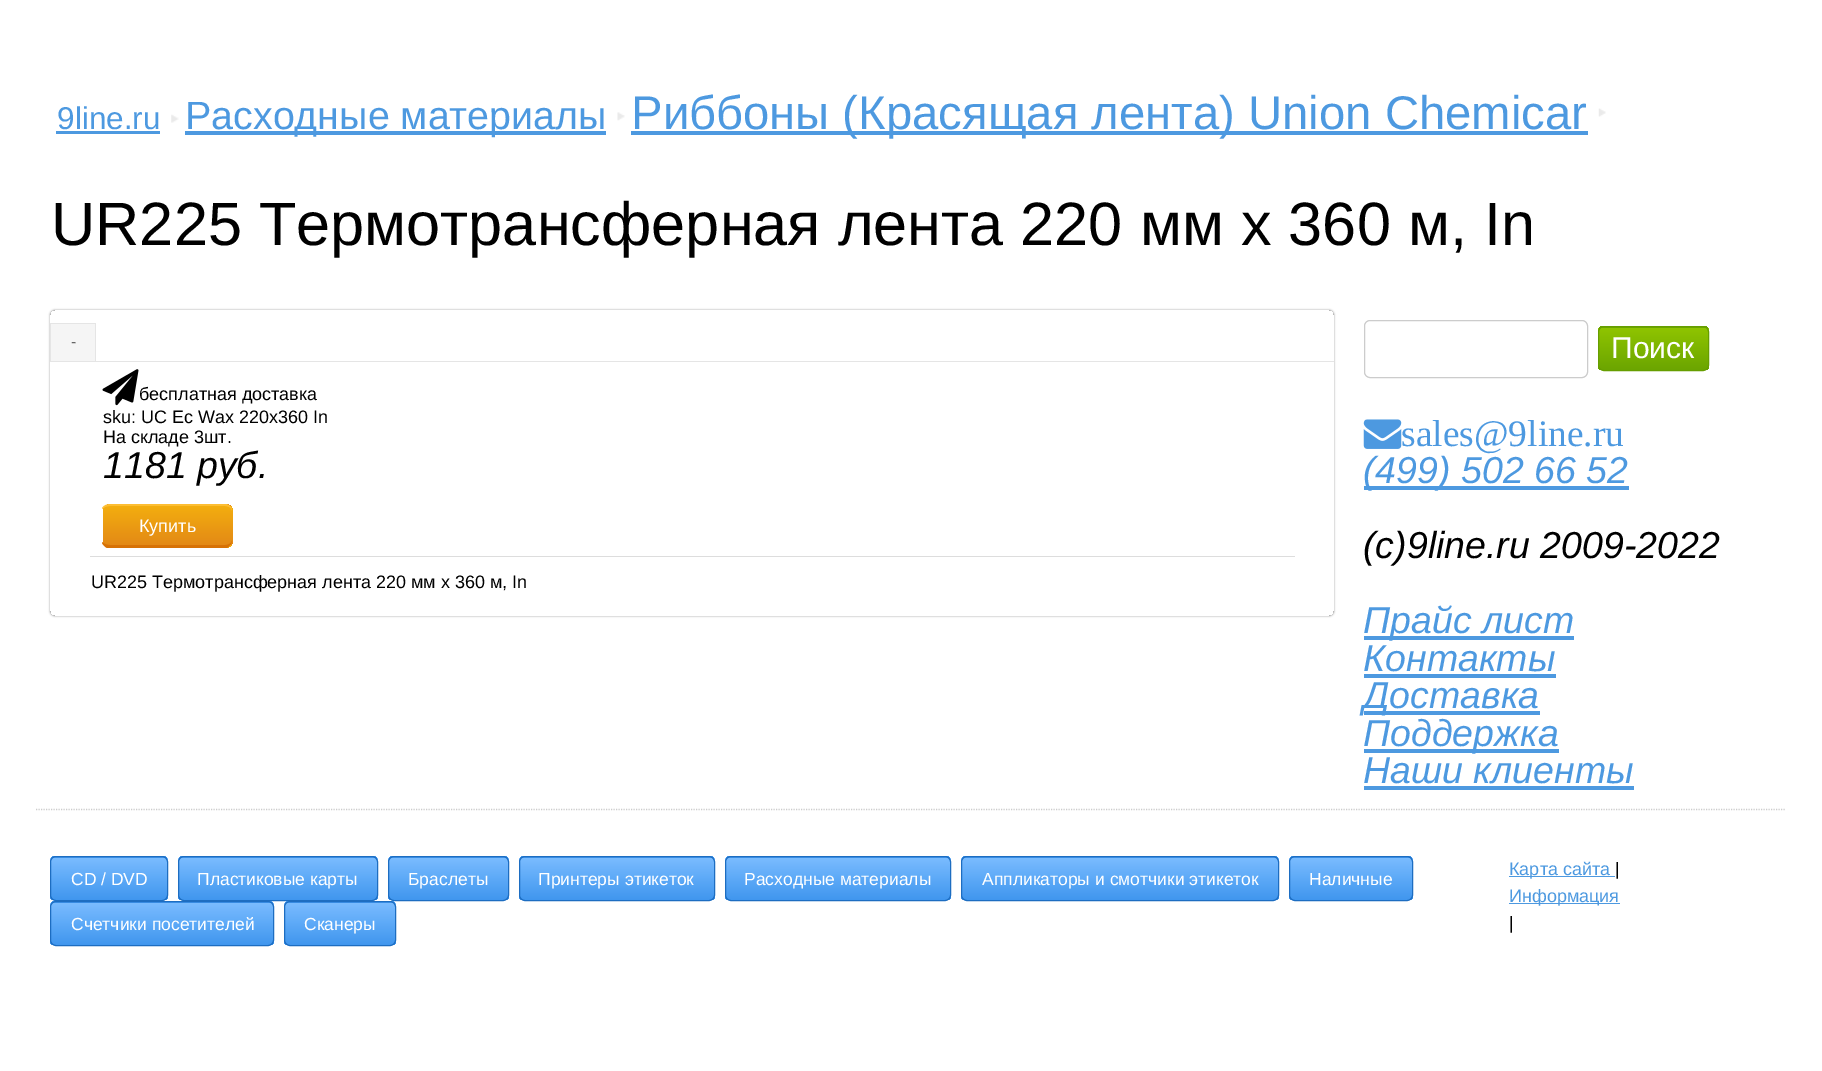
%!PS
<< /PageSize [1822 1071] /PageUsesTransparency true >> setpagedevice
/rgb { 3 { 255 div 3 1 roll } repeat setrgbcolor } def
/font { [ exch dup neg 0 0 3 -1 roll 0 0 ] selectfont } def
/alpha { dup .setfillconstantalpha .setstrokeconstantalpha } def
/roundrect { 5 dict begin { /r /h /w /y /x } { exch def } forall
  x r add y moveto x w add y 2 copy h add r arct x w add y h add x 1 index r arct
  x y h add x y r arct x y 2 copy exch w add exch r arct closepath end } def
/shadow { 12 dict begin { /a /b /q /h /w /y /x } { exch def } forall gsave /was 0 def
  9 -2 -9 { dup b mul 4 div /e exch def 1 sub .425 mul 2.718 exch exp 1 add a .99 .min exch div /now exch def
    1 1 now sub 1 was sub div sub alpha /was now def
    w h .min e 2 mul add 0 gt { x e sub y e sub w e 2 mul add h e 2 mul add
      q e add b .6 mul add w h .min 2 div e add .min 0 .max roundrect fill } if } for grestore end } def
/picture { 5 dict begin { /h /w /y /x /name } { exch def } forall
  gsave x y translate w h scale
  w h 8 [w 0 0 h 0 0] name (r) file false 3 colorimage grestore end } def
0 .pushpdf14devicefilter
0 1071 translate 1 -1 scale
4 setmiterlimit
255 255 255 rgb
0 0 1822 1071 rectfill
(img/1.rgb) 171 114 8 9 picture
77 153 224 rgb
56 131 104 3 rectfill
(img/2.rgb) 617 112 8 9 picture
185 131 421 4 rectfill
(img/3.rgb) 1598 108 8 9 picture
631 131 957 4 rectfill
gsave
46 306 moveto 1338 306 lineto 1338 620 lineto 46 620 lineto closepath 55 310 moveto 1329 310 lineto 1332 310 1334 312 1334 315 curveto 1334 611 lineto 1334 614 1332 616 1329 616 curveto 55 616 lineto 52 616 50 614 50 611 curveto 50 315 lineto 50 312 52 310 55 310 curveto closepath eoclip newpath
0 0 0 rgb
50 310 1284 306 5 1 0.4 shadow
grestore
[
  [50 361 1284 1 229 229 229]
  [51 324 44 37 245 245 245]
  [50 323 46 1 229 229 229]
  [95 323 1 38 229 229 229]
  [50 323 1 38 229 229 229]
  [90 556 1205 1 221 221 221]
] { aload pop rgb rectfill } forall
(img/4.rgb) 102 369 37 37 picture
gsave
103 504 130 44 8 roundrect clip newpath
gsave 103 504 moveto 233 504 lineto 233 506 lineto 103 506 lineto closepath clip newpath
<< /ShadingType 2 /ColorSpace /DeviceRGB /Coords [168 468 168 506] /Extend [true true] /Function << /FunctionType 2 /Domain [0 1] /C0 [0.953 0.682 0.059] /C1 [0.89 0.537 0.086] /N 1 >> >> shfill grestore
gsave 103 506 moveto 233 506 lineto 233 545 lineto 103 545 lineto closepath clip newpath
<< /ShadingType 2 /ColorSpace /DeviceRGB /Coords [168 506 168 545] /Extend [true true] /Function << /FunctionType 2 /Domain [0 1] /C0 [0.953 0.682 0.059] /C1 [0.89 0.537 0.086] /N 1 >> >> shfill grestore
gsave 103 545 moveto 233 545 lineto 233 548 lineto 103 548 lineto closepath clip newpath
<< /ShadingType 2 /ColorSpace /DeviceRGB /Coords [168 545 168 584] /Extend [true true] /Function << /FunctionType 2 /Domain [0 1] /C0 [0.953 0.682 0.059] /C1 [0.89 0.537 0.086] /N 1 >> >> shfill grestore
grestore
253 190 51 rgb
110 504 moveto 225 504 lineto 229 504 232 507 232 511 curveto 232 508 229 506 225 506 curveto 110 506 lineto 107 506 104 507 102 509 curveto 102 506 107 504 110 504 curveto closepath fill
215 114 6 rgb
227 548 moveto 230 546 232 543 232 540 curveto 232 543 229 545 225 545 curveto 110 545 lineto 107 545 104 544 102 542 curveto 102 543 lineto 103 545 105 547 107 548 curveto closepath fill
204 204 204 rgb
1364.5 320.5 223 57 5.5 roundrect stroke
gsave
1598 326 111 45 6 roundrect clip newpath
gsave 1598 326 moveto 1709 326 lineto 1709 328 lineto 1598 328 lineto closepath clip newpath
<< /ShadingType 2 /ColorSpace /DeviceRGB /Coords [1653 285 1653 328] /Extend [true true] /Function << /FunctionType 2 /Domain [0 1] /C0 [0.561 0.769 0] /C1 [0.42 0.647 0] /N 1 >> >> shfill grestore
gsave 1598 328 moveto 1709 328 lineto 1709 370 lineto 1598 370 lineto closepath clip newpath
<< /ShadingType 2 /ColorSpace /DeviceRGB /Coords [1653 328 1653 370] /Extend [true true] /Function << /FunctionType 2 /Domain [0 1] /C0 [0.561 0.769 0] /C1 [0.42 0.647 0] /N 1 >> >> shfill grestore
grestore
102 158 0 rgb
1598.5 326.5 110 44 5.5 roundrect stroke
(img/5.rgb) 1363 419 39 30 picture
[
  [1364 486 265 4 77 153 224]
  [1364 636 210 4 77 153 224]
  [1364 674 192 4 77 153 224]
  [1364 711 176 4 77 153 224]
  [1364 749 195 4 77 153 224]
  [1364 786 270 4 77 153 224]
] { aload pop rgb rectfill } forall
204 204 204 rgb
1.2 setlinewidth
[1.25 1.25] 0 setdash
36 809.5 moveto 1786 809.5 lineto stroke
gsave
50 856 118 45 6 roundrect clip newpath
gsave 50 856 moveto 168 856 lineto 168 858 lineto 50 858 lineto closepath clip newpath
<< /ShadingType 2 /ColorSpace /DeviceRGB /Coords [109 815 109 858] /Extend [true true] /Function << /FunctionType 3 /Domain [0 1] /Functions [<< /FunctionType 2 /Domain [0 1] /C0 [0.478 0.737 1] /C1 [0.376 0.671 0.973] /N 1 >> << /FunctionType 2 /Domain [0 1] /C0 [0.376 0.671 0.973] /C1 [0.251 0.588 0.933] /N 1 >>] /Bounds [0.44] /Encode [0 1 0 1] >> >> shfill grestore
gsave 50 858 moveto 168 858 lineto 168 900 lineto 50 900 lineto closepath clip newpath
<< /ShadingType 2 /ColorSpace /DeviceRGB /Coords [109 858 109 900] /Extend [true true] /Function << /FunctionType 3 /Domain [0 1] /Functions [<< /FunctionType 2 /Domain [0 1] /C0 [0.478 0.737 1] /C1 [0.376 0.671 0.973] /N 1 >> << /FunctionType 2 /Domain [0 1] /C0 [0.376 0.671 0.973] /C1 [0.251 0.588 0.933] /N 1 >>] /Bounds [0.44] /Encode [0 1 0 1] >> >> shfill grestore
grestore
29 109 193 rgb
1 setlinewidth
[] 0 setdash
50.5 856.5 117 44 5.5 roundrect stroke
gsave
178 856 200 45 6 roundrect clip newpath
gsave 178 856 moveto 378 856 lineto 378 858 lineto 178 858 lineto closepath clip newpath
<< /ShadingType 2 /ColorSpace /DeviceRGB /Coords [278 815 278 858] /Extend [true true] /Function << /FunctionType 3 /Domain [0 1] /Functions [<< /FunctionType 2 /Domain [0 1] /C0 [0.478 0.737 1] /C1 [0.376 0.671 0.973] /N 1 >> << /FunctionType 2 /Domain [0 1] /C0 [0.376 0.671 0.973] /C1 [0.251 0.588 0.933] /N 1 >>] /Bounds [0.44] /Encode [0 1 0 1] >> >> shfill grestore
gsave 178 858 moveto 378 858 lineto 378 900 lineto 178 900 lineto closepath clip newpath
<< /ShadingType 2 /ColorSpace /DeviceRGB /Coords [278 858 278 900] /Extend [true true] /Function << /FunctionType 3 /Domain [0 1] /Functions [<< /FunctionType 2 /Domain [0 1] /C0 [0.478 0.737 1] /C1 [0.376 0.671 0.973] /N 1 >> << /FunctionType 2 /Domain [0 1] /C0 [0.376 0.671 0.973] /C1 [0.251 0.588 0.933] /N 1 >>] /Bounds [0.44] /Encode [0 1 0 1] >> >> shfill grestore
grestore
178.5 856.5 199 44 5.5 roundrect stroke
gsave
388 856 121 45 6 roundrect clip newpath
gsave 388 856 moveto 509 856 lineto 509 858 lineto 388 858 lineto closepath clip newpath
<< /ShadingType 2 /ColorSpace /DeviceRGB /Coords [448 815 448 858] /Extend [true true] /Function << /FunctionType 3 /Domain [0 1] /Functions [<< /FunctionType 2 /Domain [0 1] /C0 [0.478 0.737 1] /C1 [0.376 0.671 0.973] /N 1 >> << /FunctionType 2 /Domain [0 1] /C0 [0.376 0.671 0.973] /C1 [0.251 0.588 0.933] /N 1 >>] /Bounds [0.44] /Encode [0 1 0 1] >> >> shfill grestore
gsave 388 858 moveto 509 858 lineto 509 900 lineto 388 900 lineto closepath clip newpath
<< /ShadingType 2 /ColorSpace /DeviceRGB /Coords [448 858 448 900] /Extend [true true] /Function << /FunctionType 3 /Domain [0 1] /Functions [<< /FunctionType 2 /Domain [0 1] /C0 [0.478 0.737 1] /C1 [0.376 0.671 0.973] /N 1 >> << /FunctionType 2 /Domain [0 1] /C0 [0.376 0.671 0.973] /C1 [0.251 0.588 0.933] /N 1 >>] /Bounds [0.44] /Encode [0 1 0 1] >> >> shfill grestore
grestore
388.5 856.5 120 44 5.5 roundrect stroke
gsave
519 856 196 45 6 roundrect clip newpath
gsave 519 856 moveto 715 856 lineto 715 858 lineto 519 858 lineto closepath clip newpath
<< /ShadingType 2 /ColorSpace /DeviceRGB /Coords [617 815 617 858] /Extend [true true] /Function << /FunctionType 3 /Domain [0 1] /Functions [<< /FunctionType 2 /Domain [0 1] /C0 [0.478 0.737 1] /C1 [0.376 0.671 0.973] /N 1 >> << /FunctionType 2 /Domain [0 1] /C0 [0.376 0.671 0.973] /C1 [0.251 0.588 0.933] /N 1 >>] /Bounds [0.44] /Encode [0 1 0 1] >> >> shfill grestore
gsave 519 858 moveto 715 858 lineto 715 900 lineto 519 900 lineto closepath clip newpath
<< /ShadingType 2 /ColorSpace /DeviceRGB /Coords [617 858 617 900] /Extend [true true] /Function << /FunctionType 3 /Domain [0 1] /Functions [<< /FunctionType 2 /Domain [0 1] /C0 [0.478 0.737 1] /C1 [0.376 0.671 0.973] /N 1 >> << /FunctionType 2 /Domain [0 1] /C0 [0.376 0.671 0.973] /C1 [0.251 0.588 0.933] /N 1 >>] /Bounds [0.44] /Encode [0 1 0 1] >> >> shfill grestore
grestore
519.5 856.5 195 44 5.5 roundrect stroke
gsave
725 856 226 45 6 roundrect clip newpath
gsave 725 856 moveto 951 856 lineto 951 858 lineto 725 858 lineto closepath clip newpath
<< /ShadingType 2 /ColorSpace /DeviceRGB /Coords [838 815 838 858] /Extend [true true] /Function << /FunctionType 3 /Domain [0 1] /Functions [<< /FunctionType 2 /Domain [0 1] /C0 [0.478 0.737 1] /C1 [0.376 0.671 0.973] /N 1 >> << /FunctionType 2 /Domain [0 1] /C0 [0.376 0.671 0.973] /C1 [0.251 0.588 0.933] /N 1 >>] /Bounds [0.44] /Encode [0 1 0 1] >> >> shfill grestore
gsave 725 858 moveto 951 858 lineto 951 900 lineto 725 900 lineto closepath clip newpath
<< /ShadingType 2 /ColorSpace /DeviceRGB /Coords [838 858 838 900] /Extend [true true] /Function << /FunctionType 3 /Domain [0 1] /Functions [<< /FunctionType 2 /Domain [0 1] /C0 [0.478 0.737 1] /C1 [0.376 0.671 0.973] /N 1 >> << /FunctionType 2 /Domain [0 1] /C0 [0.376 0.671 0.973] /C1 [0.251 0.588 0.933] /N 1 >>] /Bounds [0.44] /Encode [0 1 0 1] >> >> shfill grestore
grestore
725.5 856.5 225 44 5.5 roundrect stroke
gsave
961 856 318 45 6 roundrect clip newpath
gsave 961 856 moveto 1279 856 lineto 1279 858 lineto 961 858 lineto closepath clip newpath
<< /ShadingType 2 /ColorSpace /DeviceRGB /Coords [1120 815 1120 858] /Extend [true true] /Function << /FunctionType 3 /Domain [0 1] /Functions [<< /FunctionType 2 /Domain [0 1] /C0 [0.478 0.737 1] /C1 [0.376 0.671 0.973] /N 1 >> << /FunctionType 2 /Domain [0 1] /C0 [0.376 0.671 0.973] /C1 [0.251 0.588 0.933] /N 1 >>] /Bounds [0.44] /Encode [0 1 0 1] >> >> shfill grestore
gsave 961 858 moveto 1279 858 lineto 1279 900 lineto 961 900 lineto closepath clip newpath
<< /ShadingType 2 /ColorSpace /DeviceRGB /Coords [1120 858 1120 900] /Extend [true true] /Function << /FunctionType 3 /Domain [0 1] /Functions [<< /FunctionType 2 /Domain [0 1] /C0 [0.478 0.737 1] /C1 [0.376 0.671 0.973] /N 1 >> << /FunctionType 2 /Domain [0 1] /C0 [0.376 0.671 0.973] /C1 [0.251 0.588 0.933] /N 1 >>] /Bounds [0.44] /Encode [0 1 0 1] >> >> shfill grestore
grestore
961.5 856.5 317 44 5.5 roundrect stroke
gsave
1289 856 124 45 6 roundrect clip newpath
gsave 1289 856 moveto 1413 856 lineto 1413 858 lineto 1289 858 lineto closepath clip newpath
<< /ShadingType 2 /ColorSpace /DeviceRGB /Coords [1351 815 1351 858] /Extend [true true] /Function << /FunctionType 3 /Domain [0 1] /Functions [<< /FunctionType 2 /Domain [0 1] /C0 [0.478 0.737 1] /C1 [0.376 0.671 0.973] /N 1 >> << /FunctionType 2 /Domain [0 1] /C0 [0.376 0.671 0.973] /C1 [0.251 0.588 0.933] /N 1 >>] /Bounds [0.44] /Encode [0 1 0 1] >> >> shfill grestore
gsave 1289 858 moveto 1413 858 lineto 1413 900 lineto 1289 900 lineto closepath clip newpath
<< /ShadingType 2 /ColorSpace /DeviceRGB /Coords [1351 858 1351 900] /Extend [true true] /Function << /FunctionType 3 /Domain [0 1] /Functions [<< /FunctionType 2 /Domain [0 1] /C0 [0.478 0.737 1] /C1 [0.376 0.671 0.973] /N 1 >> << /FunctionType 2 /Domain [0 1] /C0 [0.376 0.671 0.973] /C1 [0.251 0.588 0.933] /N 1 >>] /Bounds [0.44] /Encode [0 1 0 1] >> >> shfill grestore
grestore
1289.5 856.5 123 44 5.5 roundrect stroke
gsave
50 901 224 45 6 roundrect clip newpath
gsave 50 901 moveto 274 901 lineto 274 903 lineto 50 903 lineto closepath clip newpath
<< /ShadingType 2 /ColorSpace /DeviceRGB /Coords [162 860 162 903] /Extend [true true] /Function << /FunctionType 3 /Domain [0 1] /Functions [<< /FunctionType 2 /Domain [0 1] /C0 [0.478 0.737 1] /C1 [0.376 0.671 0.973] /N 1 >> << /FunctionType 2 /Domain [0 1] /C0 [0.376 0.671 0.973] /C1 [0.251 0.588 0.933] /N 1 >>] /Bounds [0.44] /Encode [0 1 0 1] >> >> shfill grestore
gsave 50 903 moveto 274 903 lineto 274 945 lineto 50 945 lineto closepath clip newpath
<< /ShadingType 2 /ColorSpace /DeviceRGB /Coords [162 903 162 945] /Extend [true true] /Function << /FunctionType 3 /Domain [0 1] /Functions [<< /FunctionType 2 /Domain [0 1] /C0 [0.478 0.737 1] /C1 [0.376 0.671 0.973] /N 1 >> << /FunctionType 2 /Domain [0 1] /C0 [0.376 0.671 0.973] /C1 [0.251 0.588 0.933] /N 1 >>] /Bounds [0.44] /Encode [0 1 0 1] >> >> shfill grestore
grestore
50.5 901.5 223 44 5.5 roundrect stroke
gsave
284 901 112 45 6 roundrect clip newpath
gsave 284 901 moveto 396 901 lineto 396 903 lineto 284 903 lineto closepath clip newpath
<< /ShadingType 2 /ColorSpace /DeviceRGB /Coords [340 860 340 903] /Extend [true true] /Function << /FunctionType 3 /Domain [0 1] /Functions [<< /FunctionType 2 /Domain [0 1] /C0 [0.478 0.737 1] /C1 [0.376 0.671 0.973] /N 1 >> << /FunctionType 2 /Domain [0 1] /C0 [0.376 0.671 0.973] /C1 [0.251 0.588 0.933] /N 1 >>] /Bounds [0.44] /Encode [0 1 0 1] >> >> shfill grestore
gsave 284 903 moveto 396 903 lineto 396 945 lineto 284 945 lineto closepath clip newpath
<< /ShadingType 2 /ColorSpace /DeviceRGB /Coords [340 903 340 945] /Extend [true true] /Function << /FunctionType 3 /Domain [0 1] /Functions [<< /FunctionType 2 /Domain [0 1] /C0 [0.478 0.737 1] /C1 [0.376 0.671 0.973] /N 1 >> << /FunctionType 2 /Domain [0 1] /C0 [0.376 0.671 0.973] /C1 [0.251 0.588 0.933] /N 1 >>] /Bounds [0.44] /Encode [0 1 0 1] >> >> shfill grestore
grestore
284.5 901.5 111 44 5.5 roundrect stroke
77 153 224 rgb
1509 876 106 1 rectfill
1509 903 111 1 rectfill
/LiberationSans-Regular 31.5 font
57 129 moveto (9line.ru) show
/LiberationSans-Regular 39.4 font
185 129 moveto (Расходные материалы) show
/LiberationSans-Regular 47.25 font
631 129 moveto (Риббоны \(Красящая лента\) Union Chemicar) show
/LiberationSans-Regular 61.25 font
0 0 0 rgb
51 245 moveto (UR225 Термотрансферная лента 220 мм х 360 м, In) show
/LiberationSans-Regular 16 font
102 102 102 rgb
71 347 moveto (-) show
/LiberationSans-Regular 18 font
0 0 0 rgb
[
  [(бесплатная доставка) 139 400]
  [(sku: UC Ec Wax 220x360 In) 103 423]
  [(На складе 3шт.) 103 443]
] { aload pop moveto show } forall
/LiberationSans-Italic 37.5 font
103 478 moveto (1181 руб.) show
/LiberationSans-Regular 18 font
255 255 255 rgb
139 532 moveto (Купить) show
0 0 0 rgb
91 588 moveto (UR225 Термотрансферная лента 220 мм х 360 м, In) show
/LiberationSans-Regular 30 font
255 255 255 rgb
1611 358 moveto (Поиск) show
/LiberationSerif-Regular 37.5 font
77 153 224 rgb
1401 446 moveto (sales@9line.ru) show
/LiberationSans-Italic 37.5 font
1363 483 moveto (\(499\) 502 66 52) show
0 0 0 rgb
1363 558 moveto (\(c\)9line.ru 2009-2022) show
77 153 224 rgb
[
  [(Прайс лист) 1363 633]
  [(Контакты) 1363 671]
  [(Доставка) 1363 708]
  [(Поддержка) 1363 746]
  [(Наши клиенты) 1363 783]
] { aload pop moveto show } forall
/LiberationSans-Regular 17.5 font
255 255 255 rgb
[
  [(CD / DVD) 71 885]
  [(Пластиковые карты) 197 885]
  [(Браслеты) 408 885]
  [(Принтеры этикеток) 538 885]
  [(Расходные материалы) 744 885]
  [(Аппликаторы и смотчики этикеток) 982 885]
  [(Наличные) 1309 885]
  [(Счетчики посетителей) 71 930]
  [(Сканеры) 304 930]
] { aload pop moveto show } forall
/LiberationSans-Regular 18 font
77 153 224 rgb
1509 875 moveto (Карта сайта) show
0 0 0 rgb
1615 875 moveto (|) show
77 153 224 rgb
1509 902 moveto (Информация) show
0 0 0 rgb
1509 929 moveto (|) show
.poppdf14devicefilter showpage
